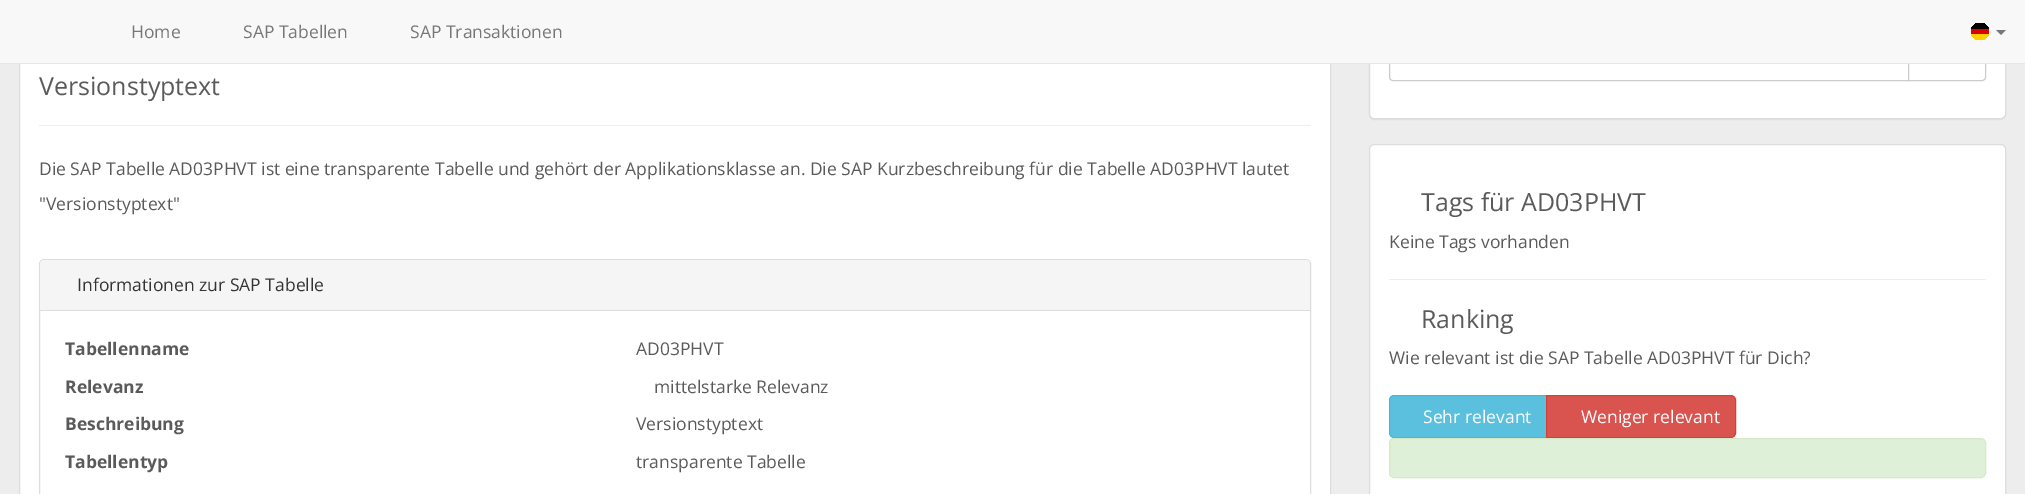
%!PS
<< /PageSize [2025 494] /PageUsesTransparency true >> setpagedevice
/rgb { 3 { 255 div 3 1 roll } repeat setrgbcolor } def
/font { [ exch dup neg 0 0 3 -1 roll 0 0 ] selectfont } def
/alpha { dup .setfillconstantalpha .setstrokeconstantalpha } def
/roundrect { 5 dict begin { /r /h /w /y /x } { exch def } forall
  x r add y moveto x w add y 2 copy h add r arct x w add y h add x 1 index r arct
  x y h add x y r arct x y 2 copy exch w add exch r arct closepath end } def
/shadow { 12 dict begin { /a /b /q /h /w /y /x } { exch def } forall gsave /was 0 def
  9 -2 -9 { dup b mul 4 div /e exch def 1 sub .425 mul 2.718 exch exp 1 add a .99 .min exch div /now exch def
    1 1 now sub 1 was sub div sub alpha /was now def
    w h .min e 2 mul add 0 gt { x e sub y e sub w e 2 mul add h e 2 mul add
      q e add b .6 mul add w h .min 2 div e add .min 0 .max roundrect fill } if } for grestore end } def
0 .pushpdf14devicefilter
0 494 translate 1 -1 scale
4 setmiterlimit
237 237 237 rgb
0 0 2025 494 rectfill
0 0 0 rgb
1369 -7 637 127 5 0.5 0.05 shadow
255 255 255 rgb
1369.5 -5.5 636 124 4.5 roundrect gsave fill grestore
221 221 221 rgb
stroke
204 204 204 rgb
1393 44.5 moveto 1908.5 44.5 lineto 1908.5 80.5 lineto 1393 80.5 lineto 1391 80.5 1389.5 79 1389.5 77 curveto 1389.5 48 lineto 1389.5 46 1391 44.5 1393 44.5 curveto closepath stroke
255 255 255 rgb
1908.5 44.5 moveto 1982 44.5 lineto 1984 44.5 1985.5 46 1985.5 48 curveto 1985.5 77 lineto 1985.5 79 1984 80.5 1982 80.5 curveto 1908.5 80.5 lineto closepath gsave fill grestore
204 204 204 rgb
stroke
255 255 255 rgb
20 64 1310 430 rectfill
221 221 221 rgb
19.5 -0.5 1311 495 rectstroke
248 248 248 rgb
0 0 2025 63 rectfill
231 231 231 rgb
0 63 2025 1 rectfill
gsave
1971 23 18 17 8.5 roundrect clip newpath
[
  [1971 34 18 6 255 206 0]
  [1971 23 18 6 0 0 0]
  [1971 29 18 5 221 0 0]
] { aload pop rgb rectfill } forall
grestore
119 119 119 rgb
1996 30 moveto 2006 30 lineto 2001 35 lineto closepath fill
238 238 238 rgb
39 125 1272 1 rectfill
221 221 221 rgb
39.5 259.5 1271 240 4.5 roundrect stroke
245 245 245 rgb
44 260 moveto 1306 260 lineto 1308 260 1310 262 1310 264 curveto 1310 311 lineto 40 311 lineto 40 264 lineto 40 262 42 260 44 260 curveto closepath fill
221 221 221 rgb
40 310 1270 1 rectfill
255 255 255 rgb
1369.5 144.5 636 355 4.5 roundrect gsave fill grestore
221 221 221 rgb
stroke
238 238 238 rgb
1389 279 597 1 rectfill
91 192 222 rgb
1394 395.5 moveto 1547.5 395.5 lineto 1547.5 437.5 lineto 1394 437.5 lineto 1391.5 437.5 1389.5 435.5 1389.5 433 curveto 1389.5 400 lineto 1389.5 397.5 1391.5 395.5 1394 395.5 curveto closepath gsave fill grestore
70 184 218 rgb
stroke
217 83 79 rgb
1546.5 395.5 moveto 1731 395.5 lineto 1733.5 395.5 1735.5 397.5 1735.5 400 curveto 1735.5 433 lineto 1735.5 435.5 1733.5 437.5 1731 437.5 curveto 1546.5 437.5 lineto closepath gsave fill grestore
212 63 58 rgb
stroke
223 240 216 rgb
1389.5 438.5 596 39 4.5 roundrect gsave fill grestore
214 233 198 rgb
stroke
/OpenSans-Regular 17.5 font
119 119 119 rgb
[
  [(Home) 131 38]
  [(SAP Tabellen) 243 38]
  [(SAP Transaktionen) 410 38]
] { aload pop moveto show } forall
/OpenSans-Regular 25 font
90 90 90 rgb
39 95 moveto (Versionstyptext) show
/OpenSans-Regular 17.5 font
39 175 moveto (Die SAP Tabelle AD03PHVT ist eine transparente Tabelle und gehört der Applikationsklasse an. Die SAP Kurzbeschreibung für die Tabelle AD03PHVT lautet) show
39 210 moveto ("Versionstyptext") show
51 51 51 rgb
77 291 moveto (Informationen zur SAP Tabelle) show
/OpenSans-Bold 17.5 font
90 90 90 rgb
65 355 moveto (Tabellenname) show
/OpenSans-Regular 17.5 font
636 355 moveto (AD03PHVT) show
/OpenSans-Bold 17.5 font
65 393 moveto (Relevanz) show
/OpenSans-Regular 17.5 font
654 393 moveto (mittelstarke Relevanz) show
/OpenSans-Bold 17.5 font
65 430 moveto (Beschreibung) show
/OpenSans-Regular 17.5 font
636 430 moveto (Versionstyptext) show
/OpenSans-Bold 17.5 font
65 468 moveto (Tabellentyp) show
/OpenSans-Regular 17.5 font
636 468 moveto (transparente Tabelle) show
/OpenSans-Regular 25 font
1421 211 moveto (Tags für AD03PHVT) show
/OpenSans-Regular 17.5 font
1389 248 moveto (Keine Tags vorhanden) show
/OpenSans-Regular 25 font
1421 328 moveto (Ranking) show
/OpenSans-Regular 17.5 font
1389 364 moveto (Wie relevant ist die SAP Tabelle AD03PHVT für Dich?) show
255 255 255 rgb
1423 423 moveto (Sehr relevant) show
1581 423 moveto (Weniger relevant) show
.poppdf14devicefilter showpage
